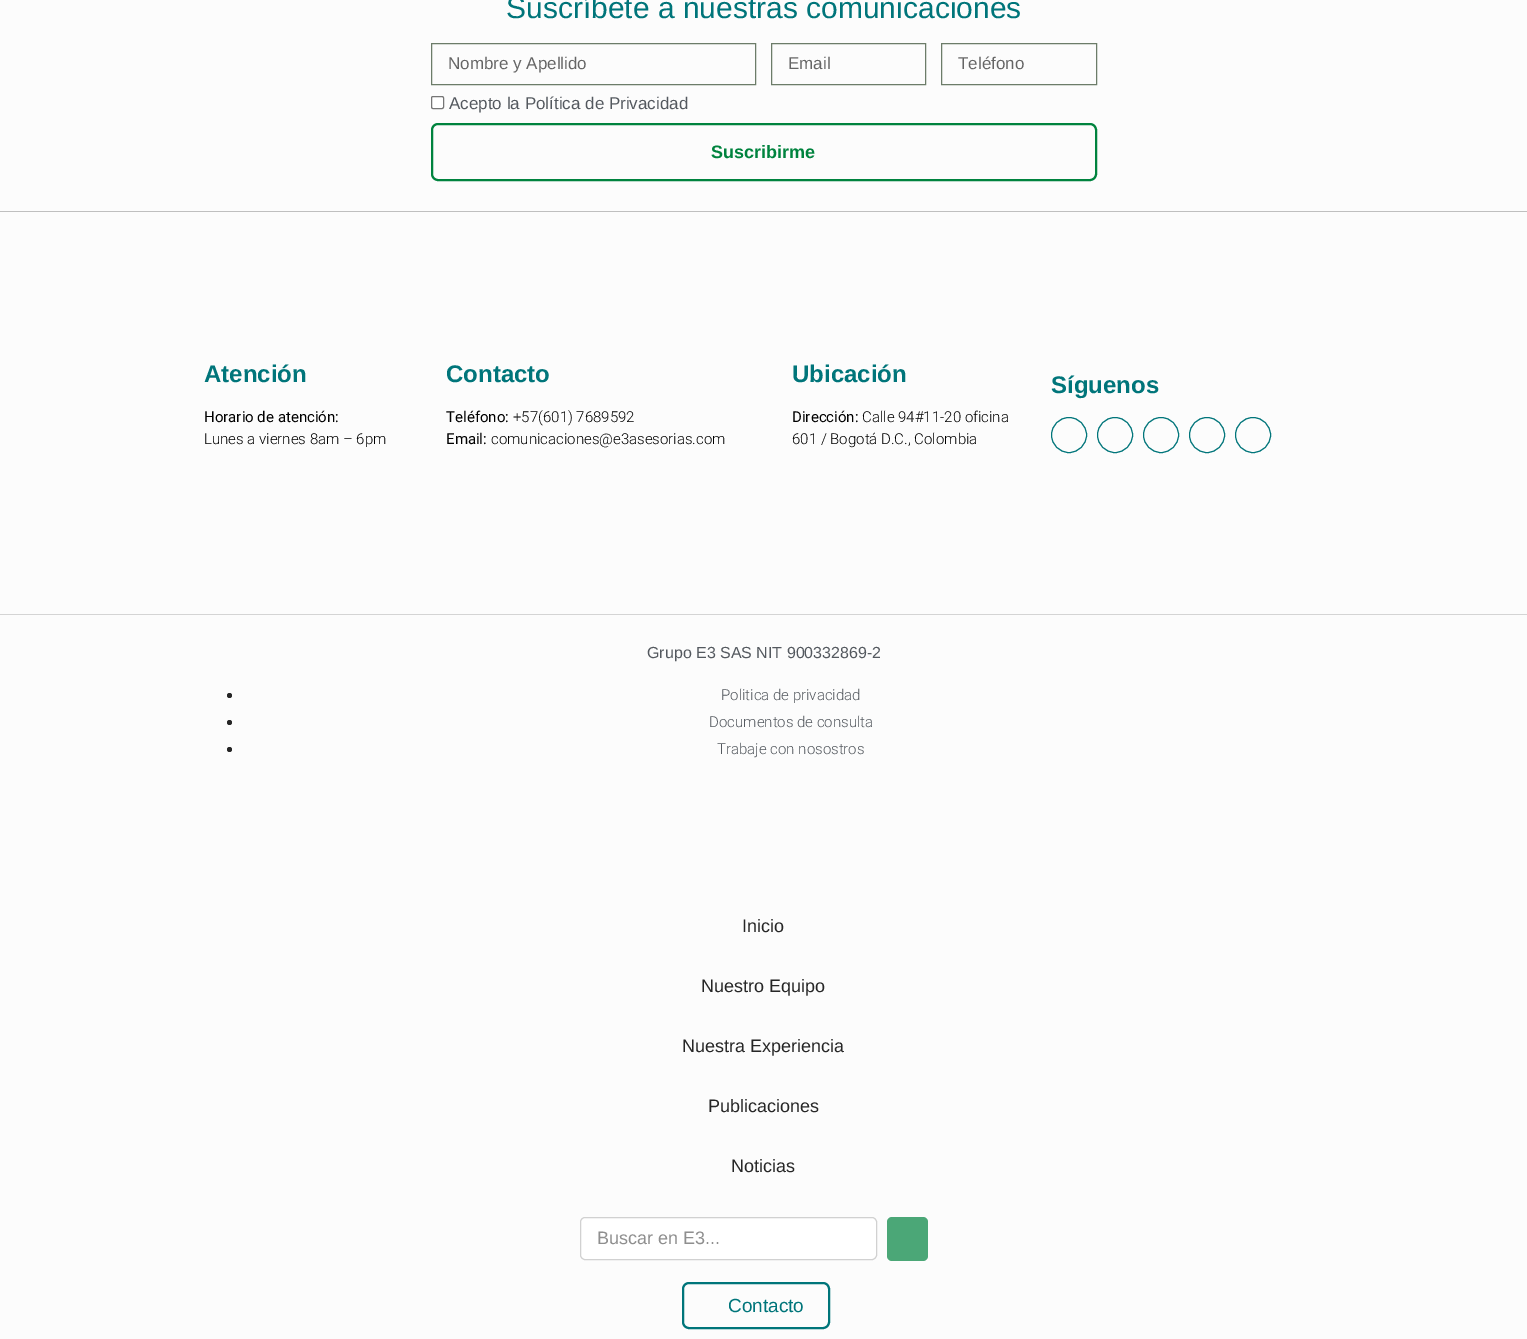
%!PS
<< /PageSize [1527 1339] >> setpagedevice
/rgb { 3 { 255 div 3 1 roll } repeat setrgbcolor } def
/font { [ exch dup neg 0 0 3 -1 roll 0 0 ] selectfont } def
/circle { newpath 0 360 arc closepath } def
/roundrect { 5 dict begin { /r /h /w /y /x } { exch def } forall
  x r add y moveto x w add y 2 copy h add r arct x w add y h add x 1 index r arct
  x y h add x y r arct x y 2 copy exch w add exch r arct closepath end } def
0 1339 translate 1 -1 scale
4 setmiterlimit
252 252 252 rgb
0 0 1527 1339 rectfill
108 124 105 rgb
431.5 43.5 324 41 rectstroke
771.5 43.5 154 41 rectstroke
941.5 43.5 155 41 rectstroke
255 255 255 rgb
431.5 96.5 12 12 1.5 roundrect gsave fill grestore
118 118 118 rgb
stroke
0 131 62 rgb
2 setlinewidth
432 124 664 56 6 roundrect stroke
191 191 191 rgb
0 211 1527 1 rectfill
0 117 122 rgb
1 setlinewidth
1069 435 17.5 circle stroke
1115 435 17.5 circle stroke
1161 435 17.5 circle stroke
1207 435 17.5 circle stroke
1253 435 17.5 circle stroke
212 212 212 rgb
0 614 1527 1 rectfill
37 37 37 rgb
229.5 695.5 2.5 circle fill
229.5 722.5 2.5 circle fill
229.5 749.5 2.5 circle fill
255 255 255 rgb
580.5 1217.5 296 42 4.5 roundrect gsave fill grestore
209 209 209 rgb
stroke
75 167 119 rgb
887 1217 41 44 5 roundrect fill
0 117 122 rgb
2 setlinewidth
683 1283 146 45 6 roundrect stroke
/LiberationSans-Regular 30 font
506 18 moveto (Suscríbete a nuestras comunicaciones) show
/LiberationSans-Regular 17 font
101 101 101 rgb
[
  [(Nombre y Apellido) 448 69]
  [(Email) 788 69]
  [(Teléfono) 958 69]
] { aload pop moveto show } forall
84 89 95 rgb
449 109 moveto (Acepto la Política de Privacidad) show
/LiberationSans-Bold 18 font
0 131 62 rgb
711 158 moveto (Suscribirme) show
/LiberationSans-Bold 24 font
0 117 122 rgb
204 382 moveto (Atención) show
/Roboto-Regular 15 font
0 0 0 rgb
204 422 moveto (Horario de atención:) show
/Roboto-Light 15 font
204 444 moveto (Lunes a viernes 8am – 6pm) show
/LiberationSans-Bold 24 font
0 117 122 rgb
446 382 moveto (Contacto) show
/Roboto-Regular 15 font
0 0 0 rgb
446 422 moveto (Teléfono:) show
/Roboto-Light 15 font
513 422 moveto (+57\(601\) 7689592) show
/Roboto-Regular 15 font
446 444 moveto (Email:) show
/Roboto-Light 15 font
491 444 moveto (comunicaciones@e3asesorias.com) show
/LiberationSans-Bold 24 font
0 117 122 rgb
792 382 moveto (Ubicación) show
/Roboto-Regular 15 font
0 0 0 rgb
792 422 moveto (Dirección:) show
/Roboto-Light 15 font
862 422 moveto (Calle 94#11-20 oficina) show
792 444 moveto (601 / Bogotá D.C., Colombia) show
/LiberationSans-Bold 24 font
0 117 122 rgb
1051 393 moveto (Síguenos) show
/LiberationSans-Regular 16 font
84 89 95 rgb
647 658 moveto (Grupo E3 SAS NIT 900332869-2) show
/Roboto-Light 15 font
[
  [(Politica de privacidad) 721 700]
  [(Documentos de consulta) 709 727]
  [(Trabaje con nosostros) 717 754]
] { aload pop moveto show } forall
/LiberationSans-Regular 18 font
39 39 39 rgb
[
  [(Inicio) 742 932]
  [(Nuestro Equipo) 701 992]
  [(Nuestra Experiencia) 682 1052]
  [(Publicaciones) 708 1112]
  [(Noticias) 731 1172]
] { aload pop moveto show } forall
143 143 143 rgb
597 1244 moveto (Buscar en E3...) show
/LiberationSans-Regular 19 font
0 117 122 rgb
728 1312 moveto (Contacto) show
showpage
